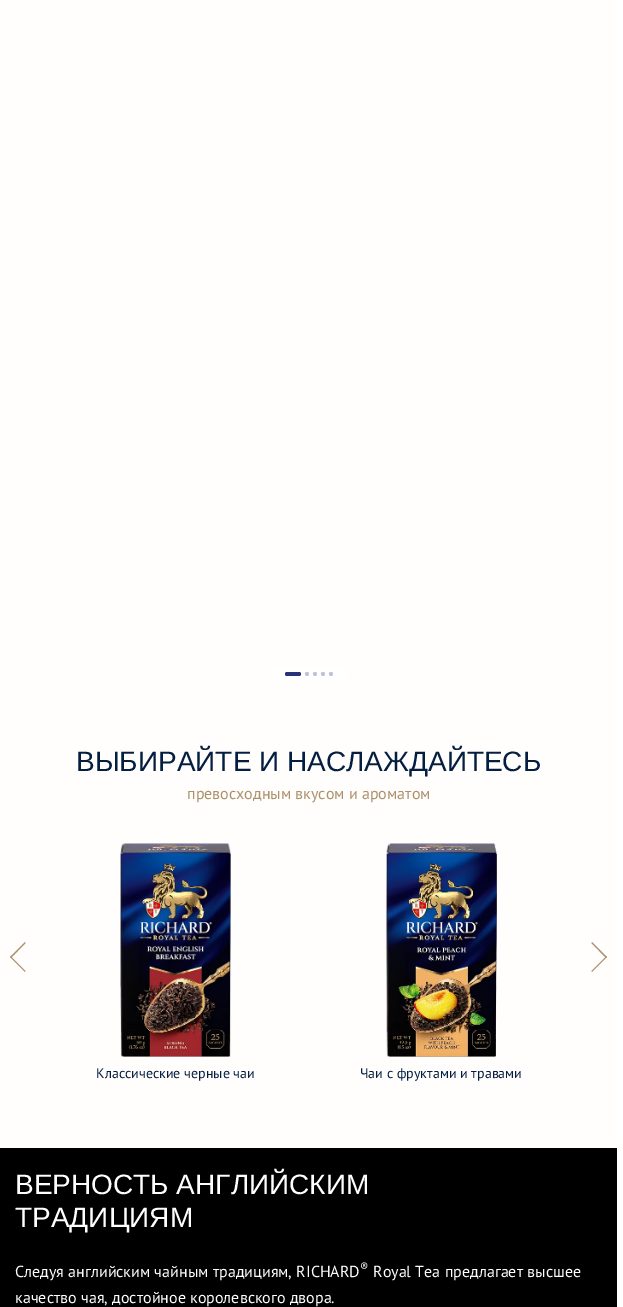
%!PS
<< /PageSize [623 1307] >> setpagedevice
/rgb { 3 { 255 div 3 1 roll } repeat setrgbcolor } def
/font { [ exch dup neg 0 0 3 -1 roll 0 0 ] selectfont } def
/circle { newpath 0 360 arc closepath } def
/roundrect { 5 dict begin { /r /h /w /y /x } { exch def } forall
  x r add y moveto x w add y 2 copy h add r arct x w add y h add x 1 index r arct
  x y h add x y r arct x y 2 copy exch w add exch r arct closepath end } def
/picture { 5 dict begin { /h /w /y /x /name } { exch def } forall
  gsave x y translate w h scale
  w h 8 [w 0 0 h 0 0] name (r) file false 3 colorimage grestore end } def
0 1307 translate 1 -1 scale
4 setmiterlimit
255 254 252 rgb
0 0 623 1307 rectfill
255 255 255 rgb
209.5 303.5 198 47 rectstroke
271 668 76 12 6 roundrect fill
42 50 122 rgb
285 672 16 4 2 roundrect fill
191 194 215 rgb
307 674 2 circle fill
315 674 2 circle fill
323 674 2 circle fill
331 674 2 circle fill
171 145 108 rgb
25.5 971 moveto 25 972 lineto 10 957 lineto 11 956.5 lineto closepath fill
25.5 943 moveto 11 958 lineto 10 957 lineto 25 942 lineto closepath fill
591.5 943 moveto 592 942 lineto 607 957 lineto 606 958 lineto closepath fill
591.5 971 moveto 606 956.5 lineto 607 957 lineto 592 972 lineto closepath fill
(img/1.rgb) 120 843 111 214 picture
(img/2.rgb) 385 843 112 214 picture
[
  [0 1148 617 159 0 0 0]
  [564 16 30 1 255 255 255]
  [568 24 21 1 255 255 255]
  [564 32 30 1 255 255 255]
  [617 0 6 1307 255 255 255]
] { aload pop rgb rectfill } forall
/LiberationSans-Regular 28 font
4 30 66 rgb
76 771 moveto (ВЫБИРАЙТЕ И НАСЛАЖДАЙТЕСЬ) show
/PTSans-Regular 16 font
171 145 108 rgb
187 799 moveto (превосходным вкусом и ароматом) show
/PTSans-Regular 14 font
4 30 66 rgb
96 1078 moveto (Классические черные чаи) show
360 1078 moveto (Чаи с фруктами и травами) show
/LiberationSans-Regular 28 font
255 255 255 rgb
15 1194 moveto (ВЕРНОСТЬ АНГЛИЙСКИМ) show
15 1227 moveto (ТРАДИЦИЯМ) show
/PTSans-Regular 16 font
15 1277 moveto (Следуя английским чайным традициям, RICHARD) show
/PTSans-Regular 12 font
360 1271 moveto (®) show
/PTSans-Regular 16 font
373 1277 moveto (Royal Tea предлагает высшее) show
15 1303 moveto (качество чая, достойное королевского двора.) show
showpage
